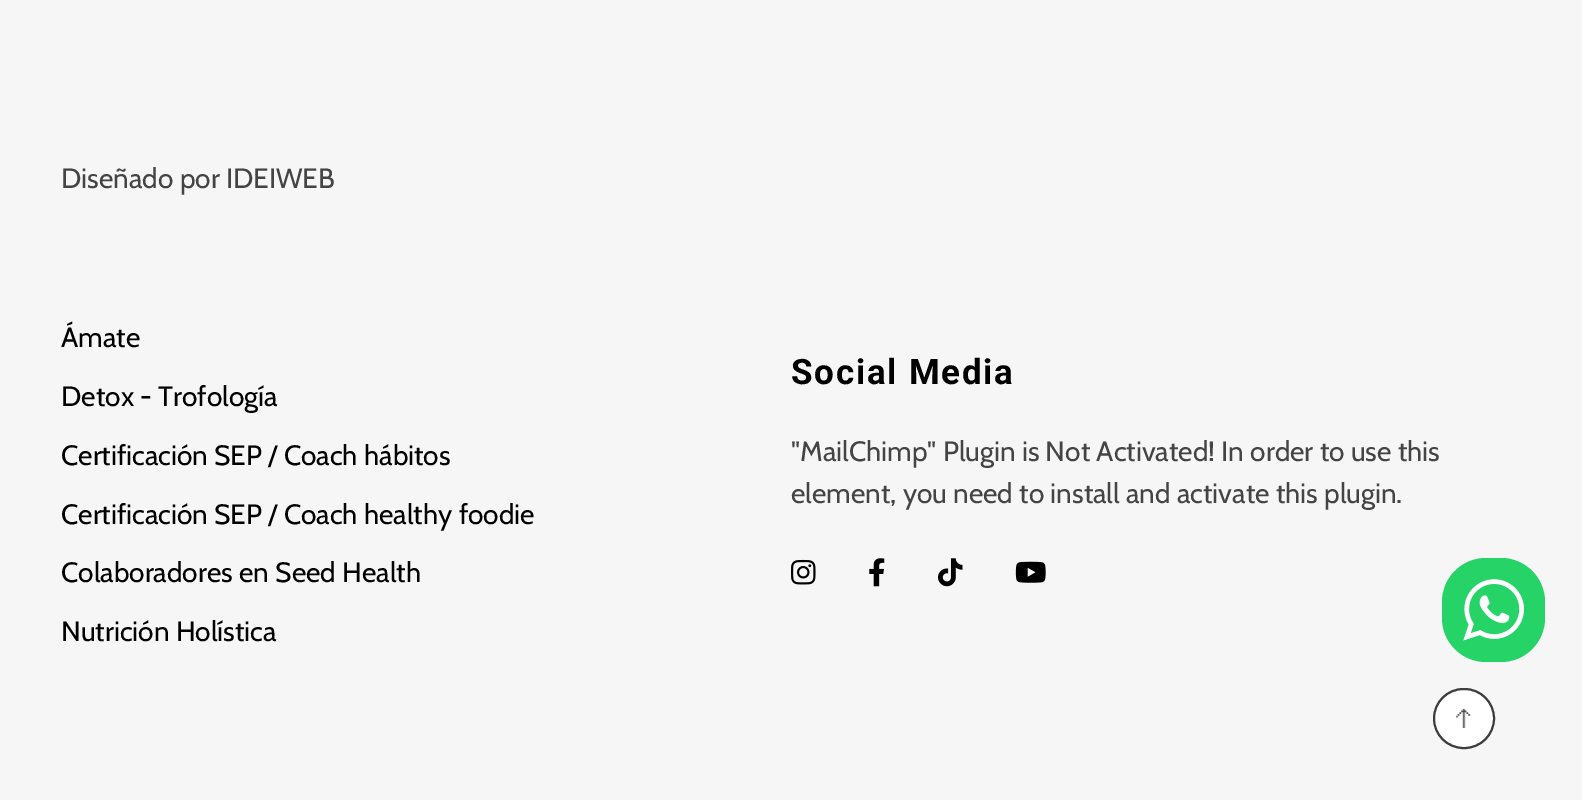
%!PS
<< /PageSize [1582 800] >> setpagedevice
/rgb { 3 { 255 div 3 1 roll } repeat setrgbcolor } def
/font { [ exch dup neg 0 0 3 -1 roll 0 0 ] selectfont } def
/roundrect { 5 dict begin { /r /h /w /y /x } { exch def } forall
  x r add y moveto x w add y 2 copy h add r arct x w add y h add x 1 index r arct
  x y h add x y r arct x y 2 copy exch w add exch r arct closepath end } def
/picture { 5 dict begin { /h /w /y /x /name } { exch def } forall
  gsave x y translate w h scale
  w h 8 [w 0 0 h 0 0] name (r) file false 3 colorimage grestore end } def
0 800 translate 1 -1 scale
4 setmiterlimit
246 246 246 rgb
0 0 1582 800 rectfill
(img/1.rgb) 791 559 25 26 picture
(img/2.rgb) 869 558 16 29 picture
(img/3.rgb) 938 558 25 29 picture
(img/4.rgb) 1015 561 31 22 picture
37 211 102 rgb
1442 558 103 104 44 roundrect fill
(img/5.rgb) 1463 579 61 62 picture
255 255 255 rgb
1434 689 60 59 29.5 roundrect gsave fill grestore
61 61 61 rgb
2 setlinewidth
stroke
(img/6.rgb) 1456 709 15 19 picture
/Cabin-Regular 28 font
68 68 68 rgb
61 188 moveto (Diseñado por IDEIWEB) show
0 0 0 rgb
[
  [(Ámate) 61 347]
  [(Detox - Trofología) 61 406]
  [(Certificación SEP / Coach hábitos) 61 465]
  [(Certificación SEP / Coach healthy foodie) 61 524]
  [(Colaboradores en Seed Health) 61 582]
  [(Nutrición Holística) 61 641]
] { aload pop moveto show } forall
/Roboto-Bold 35 font
791 384 moveto 1.75 0 (Social Media) ashow
/Cabin-Regular 28 font
68 68 68 rgb
791 461 moveto ("MailChimp" Plugin is Not Activated! In order to use this) show
791 503 moveto (element, you need to install and activate this plugin.) show
showpage
